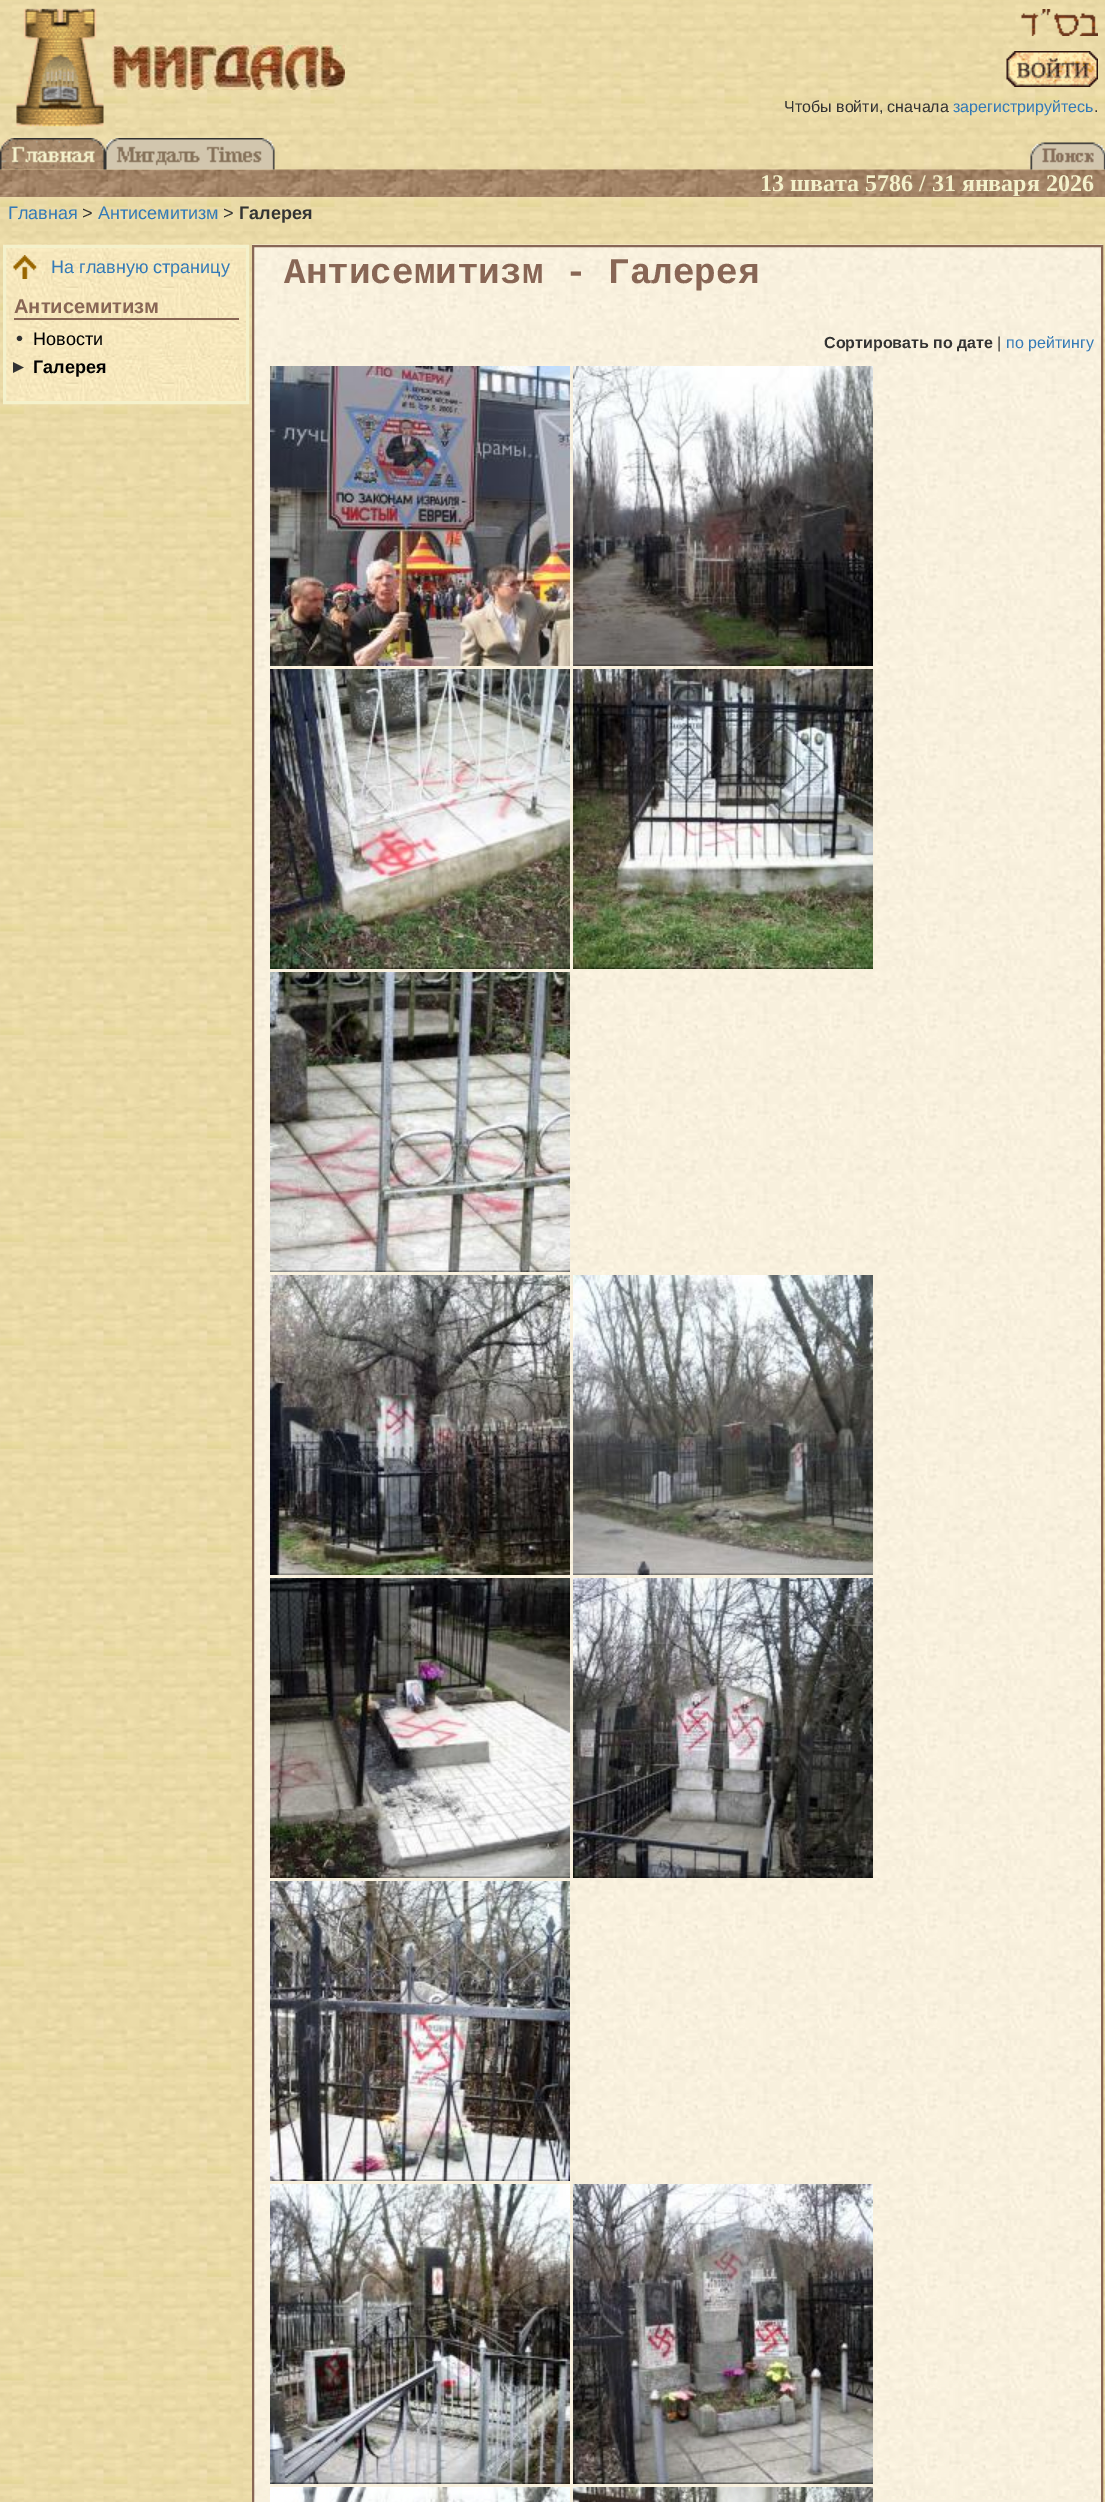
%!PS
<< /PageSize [1105 2502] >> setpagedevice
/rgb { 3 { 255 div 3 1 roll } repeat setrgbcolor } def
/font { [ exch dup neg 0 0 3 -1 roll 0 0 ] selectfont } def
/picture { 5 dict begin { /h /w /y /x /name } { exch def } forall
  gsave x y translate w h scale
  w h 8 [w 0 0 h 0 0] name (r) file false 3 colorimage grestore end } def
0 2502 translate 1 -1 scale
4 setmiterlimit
255 255 255 rgb
0 0 1105 2502 rectfill
(img/1.rgb) 0 0 1105 2502 picture
(img/2.rgb) 16 8 88 119 picture
(img/3.rgb) 112 45 233 45 picture
(img/4.rgb) 1021 9 77 27 picture
(img/5.rgb) 1006 51 92 36 picture
162 131 102 rgb
0 196 1105 1 rectfill
(img/9.rgb) 0 169 1105 28 picture
(img/6.rgb) 0 138 105 32 picture
(img/7.rgb) 105 138 170 32 picture
(img/8.rgb) 1030 142 75 28 picture
(img/10.rgb) 3 244 246 157 picture
244 241 203 rgb
3 setlinewidth
4.5 246.5 243 156 rectstroke
(img/11.rgb) 13 255 24 24 picture
136 102 85 rgb
14 318 225 2 rectfill
248 240 221 rgb
254 2500 847 2 rectfill
(img/12.rgb) 252 244 851 2256 picture
136 102 85 rgb
2 setlinewidth
253 246 849 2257 rectstroke
(img/13.rgb) 270 366 300 300 picture
(img/14.rgb) 573 366 300 300 picture
(img/15.rgb) 270 669 300 300 picture
(img/16.rgb) 573 669 300 300 picture
(img/17.rgb) 270 972 300 300 picture
(img/18.rgb) 270 1275 300 300 picture
(img/19.rgb) 573 1275 300 300 picture
(img/20.rgb) 270 1578 300 300 picture
(img/21.rgb) 573 1578 300 300 picture
(img/22.rgb) 270 1881 300 300 picture
(img/23.rgb) 270 2184 300 300 picture
(img/24.rgb) 573 2184 300 300 picture
(img/25.rgb) 270 2487 300 15 picture
(img/26.rgb) 573 2487 300 15 picture
/LiberationSans-Regular 16 font
51 51 51 rgb
784 112 moveto (Чтобы войти, сначала) show
51 122 183 rgb
953 112 moveto (зарегистрируйтесь) show
51 51 51 rgb
1094 112 moveto (.) show
/LiberationSerif-Bold 24 font
244 241 203 rgb
760 191 moveto (13 швата 5786 / 31 января 2026) show
/LiberationSans-Regular 18 font
51 122 183 rgb
8 219 moveto (Главная) show
51 51 51 rgb
82 219 moveto (>) show
51 122 183 rgb
98 219 moveto (Антисемитизм) show
51 51 51 rgb
223 219 moveto (>) show
/LiberationSans-Bold 18 font
239 219 moveto (Галерея) show
/LiberationSans-Regular 18 font
51 122 183 rgb
51 273 moveto (На главную страницу) show
/LiberationSans-Bold 20 font
136 102 85 rgb
14 313 moveto (Антисемитизм) show
/LiberationSans-Regular 20 font
51 51 51 rgb
16 345 moveto (•) show
/LiberationSans-Regular 18 font
0 0 0 rgb
33 345 moveto (Новости) show
/DejaVuSans-Bold 20 font
51 51 51 rgb
13 373 moveto (▸) show
/LiberationSans-Bold 18 font
0 0 0 rgb
33 373 moveto (Галерея) show
/LiberationMono-Bold 36 font
136 102 85 rgb
284 283 moveto (Антисемитизм - Галерея) show
/LiberationSans-Bold 16 font
51 51 51 rgb
824 348 moveto (Сортировать по дате) show
/LiberationSans-Regular 16 font
997 348 moveto (|) show
51 122 183 rgb
1006 348 moveto (по рейтингу) show
showpage
